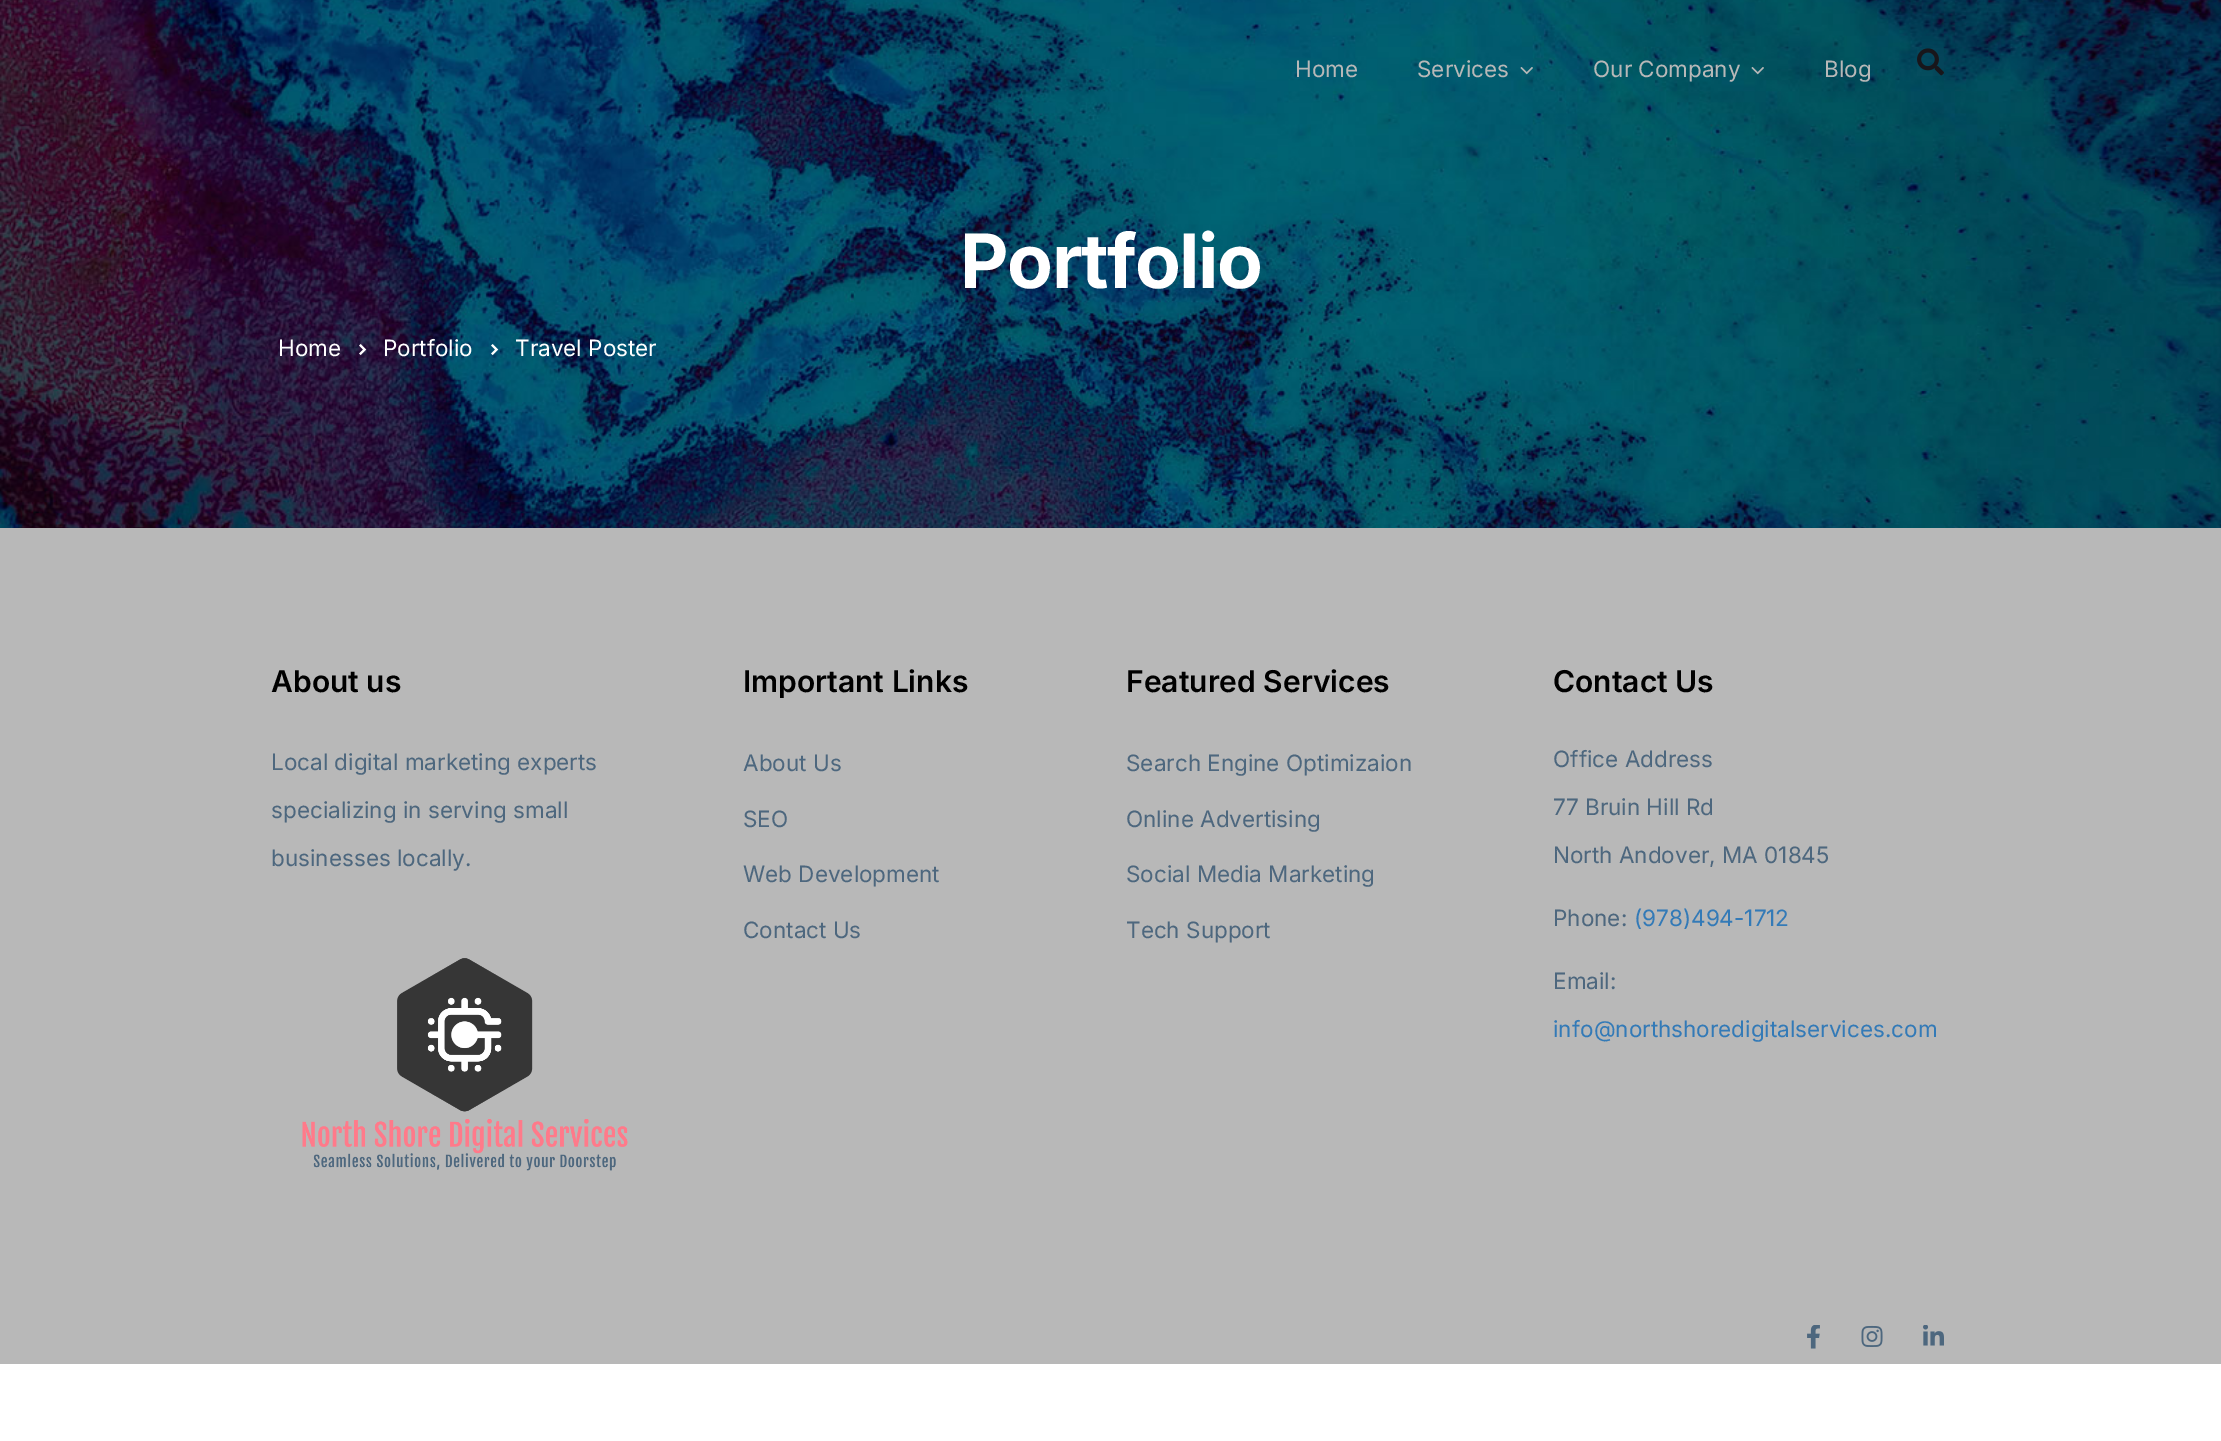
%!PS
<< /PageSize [2221 1441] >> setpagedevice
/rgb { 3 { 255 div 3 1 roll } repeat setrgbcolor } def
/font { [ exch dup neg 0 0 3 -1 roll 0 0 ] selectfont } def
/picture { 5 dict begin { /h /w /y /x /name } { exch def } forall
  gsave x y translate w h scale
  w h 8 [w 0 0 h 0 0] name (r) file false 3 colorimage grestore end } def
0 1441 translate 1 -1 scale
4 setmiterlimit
255 255 255 rgb
0 0 2221 1441 rectfill
(img/4.rgb) 0 0 2221 528 picture
(img/1.rgb) 1520 67 13 8 picture
(img/2.rgb) 1751 67 13 8 picture
(img/3.rgb) 1917 48 27 28 picture
(img/5.rgb) 359 344 8 12 picture
(img/6.rgb) 491 344 8 12 picture
184 184 184 rgb
0 528 2221 836 rectfill
(img/7.rgb) 302 958 326 213 picture
(img/8.rgb) 1807 1325 13 24 picture
(img/9.rgb) 1861 1325 22 22 picture
(img/10.rgb) 1923 1325 21 21 picture
/Inter-Regular 22.5 font
[
  [(Home) 1295 77]
  [(Services) 1417 77]
  [(Our Company) 1593 77]
  [(Blog) 1824 77]
] { aload pop moveto show } forall
/Inter-Bold 75 font
255 255 255 rgb
960 288 moveto -1.5 0 (Portfolio) ashow
/Inter-Regular 22.5 font
[
  [(Home) 278 356]
  [(Portfolio) 383 356]
  [(Travel Poster) 515 356]
] { aload pop moveto show } forall
/Inter-SemiBold 30 font
0 0 0 rgb
271 692 moveto (About us) show
/Inter-Regular 22.5 font
77 103 126 rgb
[
  [(Local digital marketing experts) 271 770]
  [(specializing in serving small) 271 818]
  [(businesses locally.) 271 866]
] { aload pop moveto show } forall
/Inter-SemiBold 30 font
0 0 0 rgb
743 692 moveto (Important Links) show
/Inter-Regular 22.5 font
77 103 126 rgb
[
  [(About Us) 743 771]
  [(SEO) 743 827]
  [(Web Development) 743 882]
  [(Contact Us) 743 938]
] { aload pop moveto show } forall
/Inter-SemiBold 30 font
0 0 0 rgb
1126 692 moveto (Featured Services) show
/Inter-Regular 22.5 font
77 103 126 rgb
[
  [(Search Engine Optimizaion) 1126 771]
  [(Online Advertising) 1126 827]
  [(Social Media Marketing) 1126 882]
  [(Tech Support) 1126 938]
] { aload pop moveto show } forall
/Inter-SemiBold 30 font
0 0 0 rgb
1553 692 moveto (Contact Us) show
/Inter-Regular 22.5 font
77 103 126 rgb
[
  [(Office Address) 1553 767]
  [(77 Bruin Hill Rd) 1553 815]
  [(North Andover, MA 01845) 1553 863]
  [(Phone:) 1553 926]
] { aload pop moveto show } forall
51 122 183 rgb
1634 926 moveto (\(978\)494-1712) show
77 103 126 rgb
1553 989 moveto (Email:) show
51 122 183 rgb
1553 1037 moveto (info@northshoredigitalservices.com) show
showpage
